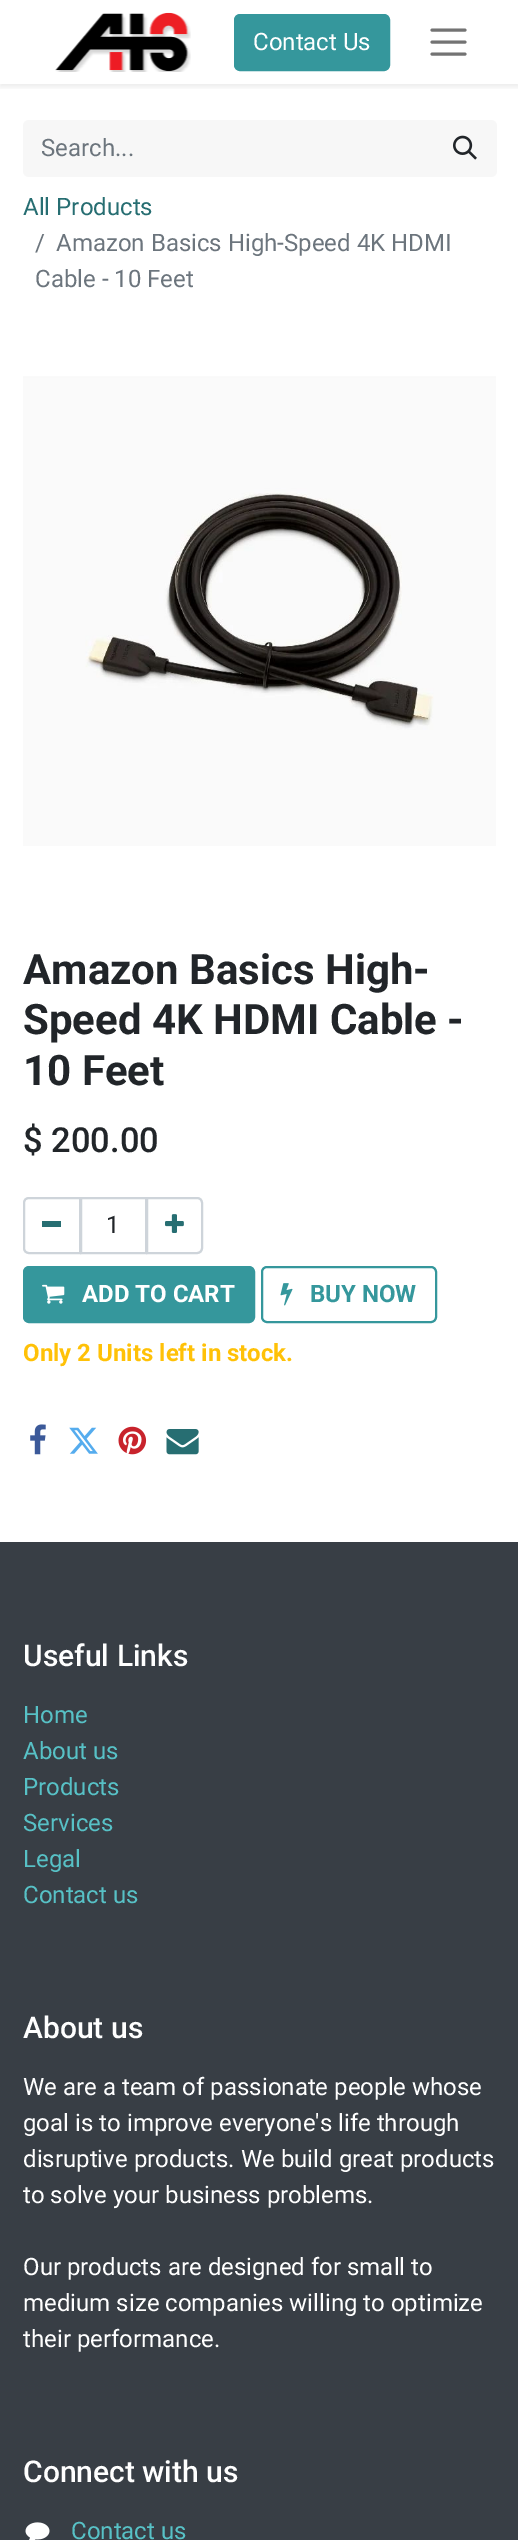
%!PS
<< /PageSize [518 2540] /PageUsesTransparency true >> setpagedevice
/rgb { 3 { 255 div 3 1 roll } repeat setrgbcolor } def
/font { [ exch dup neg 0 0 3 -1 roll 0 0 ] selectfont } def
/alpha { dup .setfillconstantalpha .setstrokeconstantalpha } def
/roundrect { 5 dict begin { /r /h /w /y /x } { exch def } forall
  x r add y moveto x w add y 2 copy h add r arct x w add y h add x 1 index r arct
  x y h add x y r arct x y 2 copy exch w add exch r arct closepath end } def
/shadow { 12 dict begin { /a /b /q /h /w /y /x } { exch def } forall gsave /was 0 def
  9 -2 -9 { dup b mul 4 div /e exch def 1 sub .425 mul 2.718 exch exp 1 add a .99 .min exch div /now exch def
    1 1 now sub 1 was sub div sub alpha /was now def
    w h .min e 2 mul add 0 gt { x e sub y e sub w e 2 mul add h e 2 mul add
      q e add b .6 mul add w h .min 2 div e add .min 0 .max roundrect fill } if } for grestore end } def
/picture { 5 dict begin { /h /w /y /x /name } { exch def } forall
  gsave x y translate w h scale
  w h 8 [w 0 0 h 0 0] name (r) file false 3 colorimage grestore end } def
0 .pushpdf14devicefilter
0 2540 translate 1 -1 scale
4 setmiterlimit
255 255 255 rgb
0 0 518 2540 rectfill
gsave
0 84 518 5 rectclip
0 0 0 rgb
0 3 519 84 0 3 0.07 shadow
grestore
(img/1.rgb) 55 12 136 60 picture
53 151 156 rgb
235 15 154 55 5 roundrect gsave fill grestore
2 setlinewidth
stroke
115 115 115 rgb
3 setlinewidth
1 setlinecap
432 30 moveto 465 30 lineto 432 42 moveto 465 42 lineto 432 54 moveto 465 54 lineto stroke
247 247 247 rgb
29 120 moveto 435 120 lineto 435 177 lineto 29 177 lineto 25.5 177 23 174.5 23 171 curveto 23 126 lineto 23 122.5 25.5 120 29 120 curveto closepath fill
434 120 moveto 491 120 lineto 494.5 120 497 122.5 497 126 curveto 497 171 lineto 497 174.5 494.5 177 491 177 curveto 434 177 lineto closepath fill
(img/2.rgb) 453 135 24 25 picture
(img/3.rgb) 23 376 473 470 picture
206 212 218 rgb
2 setlinewidth
0 setlinecap
81 1198 65 55 rectstroke
29 1198 moveto 80 1198 lineto 80 1253 lineto 29 1253 lineto 26 1253 24 1251 24 1248 curveto 24 1203 lineto 24 1200 26 1198 29 1198 curveto closepath stroke
39 110 114 rgb
42 1221 19 6 rectfill
206 212 218 rgb
147 1198 moveto 197 1198 lineto 200 1198 202 1200 202 1203 curveto 202 1248 lineto 202 1251 200 1253 197 1253 curveto 147 1253 lineto closepath stroke
(img/4.rgb) 165 1214 19 19 picture
53 151 156 rgb
24 1267 230 55 5 roundrect gsave fill grestore
stroke
(img/5.rgb) 42 1284 23 20 picture
262 1267 174 55 5 roundrect stroke
(img/6.rgb) 280 1283 13 23 picture
(img/7.rgb) 30 1424 16 31 picture
(img/8.rgb) 69 1427 29 27 picture
(img/9.rgb) 118 1426 29 29 picture
(img/10.rgb) 166 1429 33 26 picture
56 62 69 rgb
0 1542 518 998 rectfill
(img/11.rgb) 25 2522 25 18 picture
/Roboto-Regular 24 font
255 255 255 rgb
253 50 moveto (Contact Us) show
108 117 125 rgb
41 156 moveto (Search...) show
39 110 114 rgb
23 215 moveto (All Products) show
108 117 125 rgb
[
  [(/) 35 251]
  [(Amazon Basics High-Speed 4K HDMI) 56 251]
  [(Cable - 10 Feet) 35 287]
] { aload pop moveto show } forall
/Roboto-Bold 42 font
33 37 41 rgb
[
  [(Amazon Basics High-) 23 984]
  [(Speed 4K HDMI Cable -) 23 1034]
  [(10 Feet) 23 1085]
] { aload pop moveto show } forall
/Roboto-Medium 34.5 font
23 1152 moveto ($ 200.00) show
/Roboto-Regular 24 font
106 1233 moveto (1) show
/Roboto-Bold 24 font
255 255 255 rgb
82 1302 moveto (ADD TO CART) show
53 151 156 rgb
310 1302 moveto (BUY NOW) show
255 193 7 rgb
23 1361 moveto (Only 2 Units left in stock.) show
/Roboto-Medium 30 font
255 255 255 rgb
23 1666 moveto (Useful Links) show
/Roboto-Regular 24 font
87 193 198 rgb
[
  [(Home) 23 1723]
  [(About us) 23 1759]
  [(Products) 23 1795]
  [(Services) 23 1831]
  [(Legal) 23 1867]
  [(Contact us) 23 1903]
] { aload pop moveto show } forall
/Roboto-Medium 30 font
255 255 255 rgb
23 2038 moveto (About us) show
/Roboto-Regular 24 font
[
  [(We are a team of passionate people whose) 23 2095]
  [(goal is to improve everyone's life through) 23 2131]
  [(disruptive products. We build great products) 23 2167]
  [(to solve your business problems.) 23 2203]
  [(Our products are designed for small to) 23 2275]
  [(medium size companies willing to optimize) 23 2311]
  [(their performance.) 23 2347]
] { aload pop moveto show } forall
/Roboto-Medium 30 font
23 2482 moveto (Connect with us) show
/Roboto-Regular 24 font
87 193 198 rgb
71 2539 moveto (Contact us) show
.poppdf14devicefilter showpage
